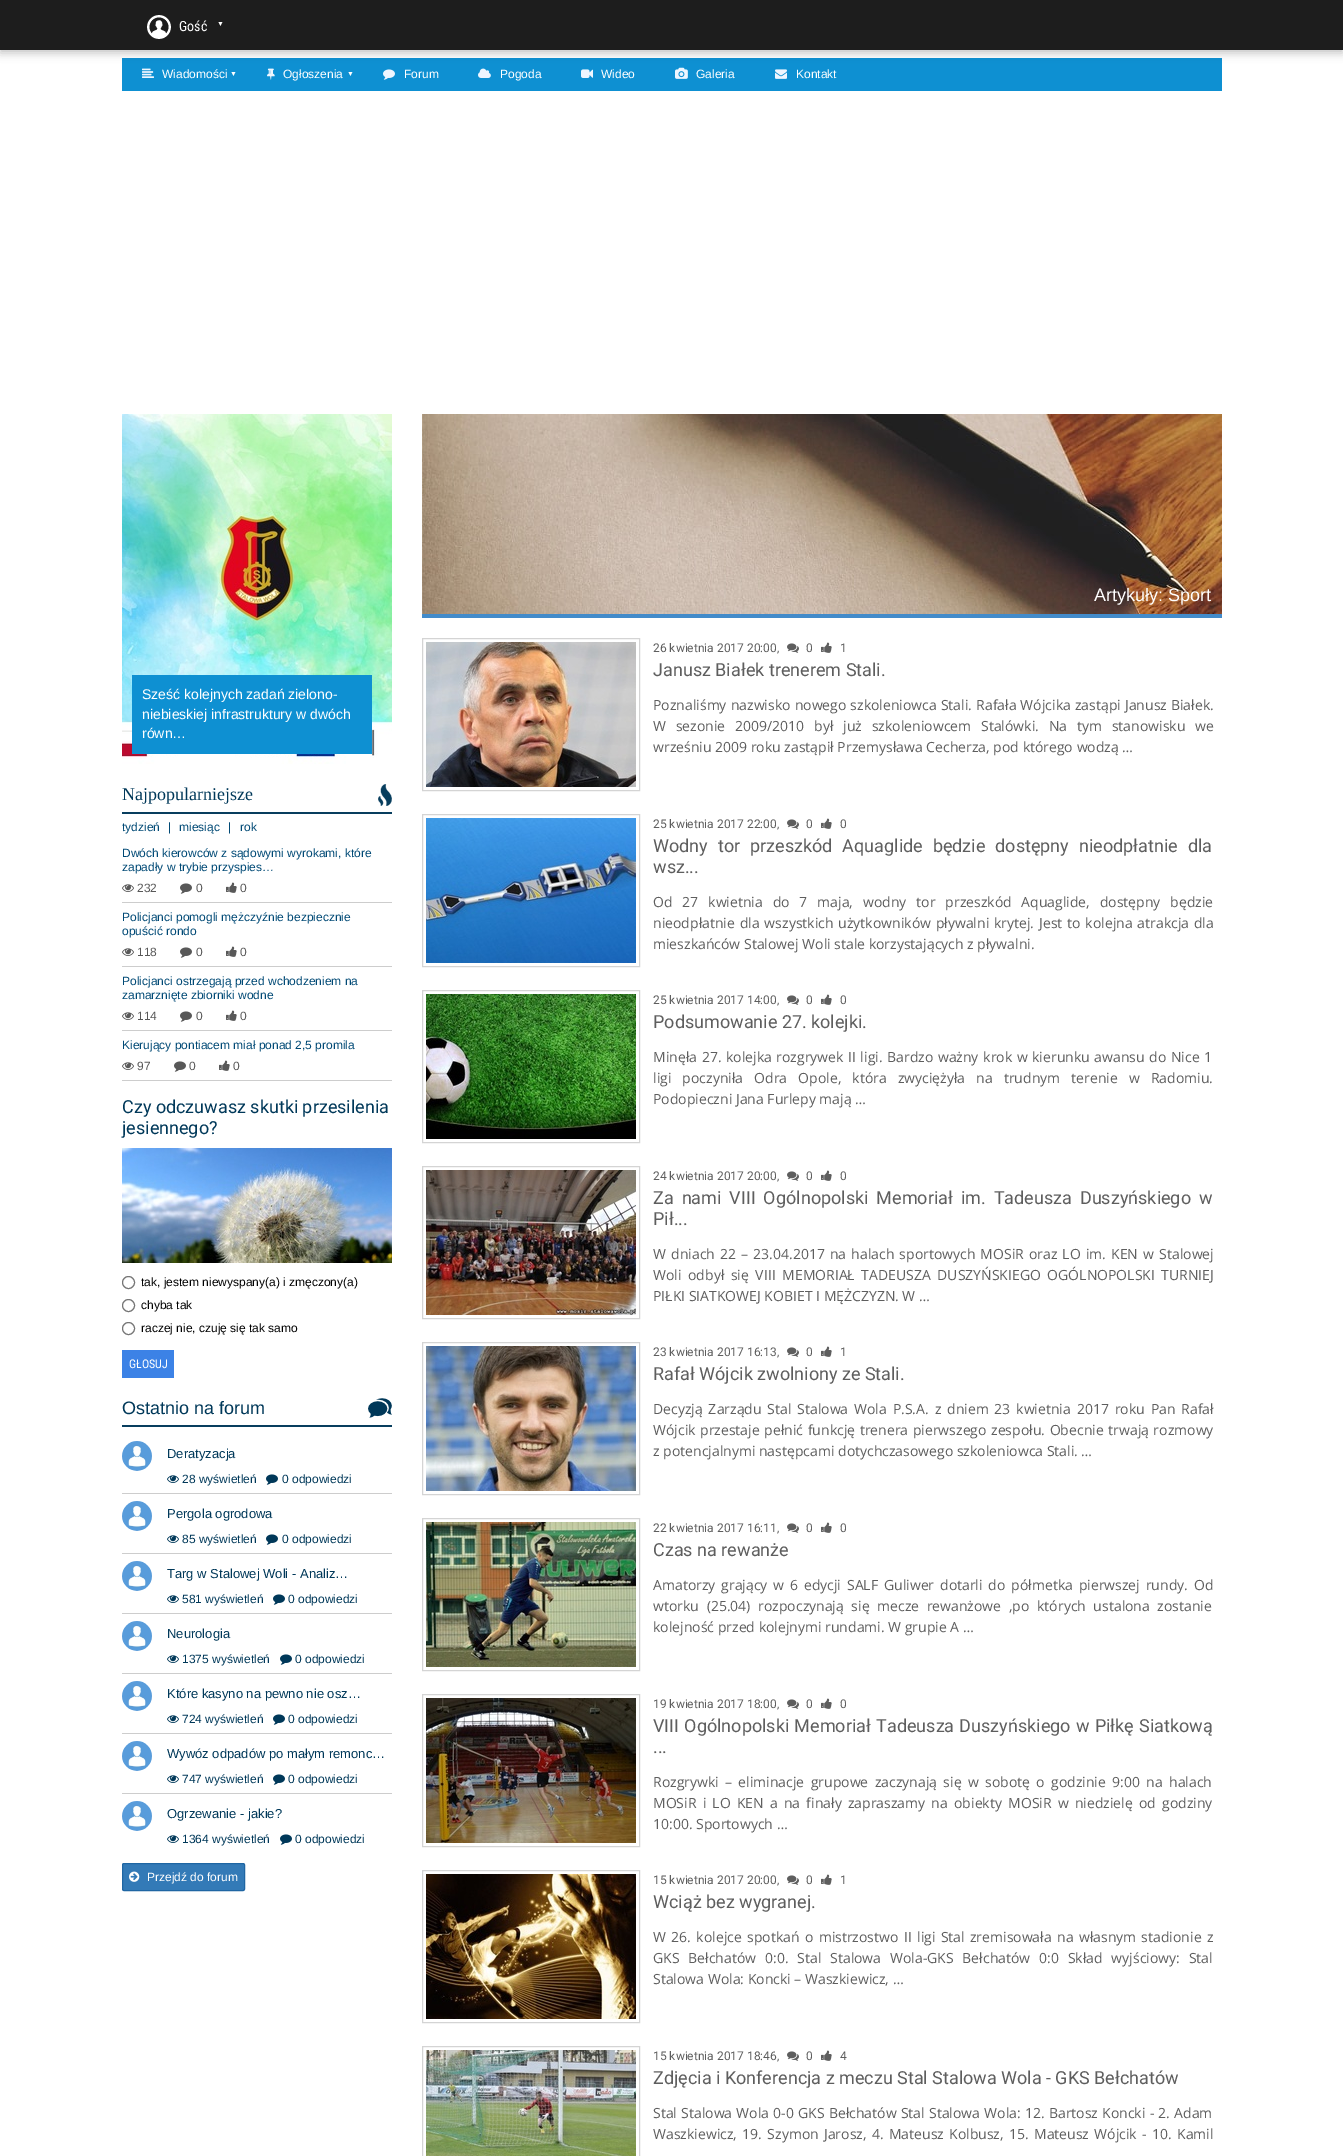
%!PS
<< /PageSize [1343 2156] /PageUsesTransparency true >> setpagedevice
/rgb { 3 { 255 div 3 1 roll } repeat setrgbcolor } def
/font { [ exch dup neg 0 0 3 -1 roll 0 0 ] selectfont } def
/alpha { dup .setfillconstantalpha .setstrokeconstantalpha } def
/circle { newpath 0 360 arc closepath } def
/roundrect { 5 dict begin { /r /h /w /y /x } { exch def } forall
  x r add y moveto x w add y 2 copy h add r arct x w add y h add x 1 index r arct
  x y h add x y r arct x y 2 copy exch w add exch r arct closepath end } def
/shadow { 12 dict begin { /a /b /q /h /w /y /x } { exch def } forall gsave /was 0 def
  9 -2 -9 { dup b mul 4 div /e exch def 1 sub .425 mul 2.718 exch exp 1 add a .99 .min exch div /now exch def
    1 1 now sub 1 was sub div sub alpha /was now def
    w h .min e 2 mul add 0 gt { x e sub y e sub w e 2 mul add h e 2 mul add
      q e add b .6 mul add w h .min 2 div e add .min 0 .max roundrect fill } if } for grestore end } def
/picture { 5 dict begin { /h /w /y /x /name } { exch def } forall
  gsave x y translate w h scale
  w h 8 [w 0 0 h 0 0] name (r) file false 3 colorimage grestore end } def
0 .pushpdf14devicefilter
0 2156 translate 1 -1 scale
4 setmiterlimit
255 255 255 rgb
0 0 1343 2156 rectfill
14 144 210 rgb
122 58 1100 33 rectfill
(img/7.rgb) 675 67 13 12 picture
50 50 50 rgb
0 3 1343 50 0 4.5 0.3 shadow
29 29 29 rgb
0 0 1343 50 rectfill
(img/1.rgb) 147 15 24 24 picture
(img/2.rgb) 142 68 12 10 picture
(img/3.rgb) 267 68 8 12 picture
(img/4.rgb) 383 69 12 11 picture
(img/5.rgb) 478 68 13 10 picture
(img/6.rgb) 581 69 12 9 picture
(img/8.rgb) 775 69 12 10 picture
(img/9.rgb) 122 414 270 350 picture
14 144 210 rgb
132 675 240 79 rectfill
(img/10.rgb) 378 784 14 22 picture
8 62 94 rgb
122 812 270 2 rectfill
205 205 205 rgb
122 902 270 1 rectfill
(img/11.rgb) 122 884 12 8 picture
(img/12.rgb) 180 883 12 11 picture
(img/13.rgb) 226 882 11 11 picture
122 966 270 1 rectfill
(img/11.rgb) 122 948 12 8 picture
(img/12.rgb) 180 947 12 11 picture
(img/13.rgb) 226 946 11 11 picture
122 1030 270 1 rectfill
(img/11.rgb) 122 1012 12 8 picture
(img/12.rgb) 180 1011 12 11 picture
(img/13.rgb) 226 1010 11 11 picture
122 1080 270 1 rectfill
(img/11.rgb) 122 1062 12 8 picture
(img/12.rgb) 174 1061 12 11 picture
(img/13.rgb) 219 1060 11 11 picture
(img/14.rgb) 122 1148 270 115 picture
118 118 118 rgb
128.5 1282.5 6 circle stroke
128.5 1305.5 6 circle stroke
128.5 1328.5 6 circle stroke
60 130 230 rgb
122 1350 52 28 rectfill
(img/15.rgb) 368 1398 24 20 picture
8 62 94 rgb
122 1425 270 2 rectfill
205 205 205 rgb
122 1493 270 1 rectfill
(img/16.rgb) 122 1441 30 30 picture
(img/17.rgb) 167 1475 12 8 picture
(img/18.rgb) 266 1474 12 11 picture
122 1553 270 1 rectfill
(img/16.rgb) 122 1501 30 30 picture
(img/17.rgb) 167 1535 12 8 picture
(img/18.rgb) 266 1534 12 11 picture
122 1613 270 1 rectfill
(img/16.rgb) 122 1561 30 30 picture
(img/17.rgb) 167 1595 12 8 picture
(img/18.rgb) 273 1594 12 11 picture
122 1673 270 1 rectfill
(img/16.rgb) 122 1621 30 30 picture
(img/17.rgb) 167 1655 12 8 picture
(img/18.rgb) 280 1654 12 11 picture
122 1733 270 1 rectfill
(img/19.rgb) 122 1681 30 30 picture
(img/17.rgb) 167 1715 12 8 picture
(img/18.rgb) 273 1714 12 11 picture
122 1793 270 1 rectfill
(img/16.rgb) 122 1741 30 30 picture
(img/17.rgb) 167 1775 12 8 picture
(img/18.rgb) 273 1774 12 11 picture
(img/20.rgb) 122 1801 30 30 picture
(img/17.rgb) 167 1835 12 8 picture
(img/18.rgb) 280 1834 12 11 picture
51 122 183 rgb
122.5 1863.5 122 27 1.5 roundrect gsave fill grestore
31 102 163 rgb
stroke
(img/21.rgb) 129 1871 11 11 picture
66 139 202 rgb
422 614 800 4 rectfill
(img/22.rgb) 422 414 800 200 picture
212 212 212 rgb
422.5 638.5 217 152 rectstroke
(img/23.rgb) 426 642 210 145 picture
(img/24.rgb) 787 643 12 10 picture
(img/25.rgb) 821 642 11 11 picture
422.5 814.5 217 152 rectstroke
(img/26.rgb) 426 818 210 145 picture
(img/24.rgb) 787 819 12 10 picture
(img/25.rgb) 821 818 11 11 picture
422.5 990.5 217 152 rectstroke
(img/27.rgb) 426 994 210 145 picture
(img/24.rgb) 787 995 12 10 picture
(img/25.rgb) 821 994 11 11 picture
422.5 1166.5 217 152 rectstroke
(img/28.rgb) 426 1170 210 145 picture
(img/24.rgb) 787 1171 12 10 picture
(img/25.rgb) 821 1170 11 11 picture
422.5 1342.5 217 152 rectstroke
(img/29.rgb) 426 1346 210 145 picture
(img/24.rgb) 787 1347 12 10 picture
(img/25.rgb) 821 1346 11 11 picture
422.5 1518.5 217 152 rectstroke
(img/30.rgb) 426 1522 210 145 picture
(img/24.rgb) 787 1523 12 10 picture
(img/25.rgb) 821 1522 11 11 picture
422.5 1694.5 217 152 rectstroke
(img/31.rgb) 426 1698 210 145 picture
(img/24.rgb) 787 1699 12 10 picture
(img/25.rgb) 821 1698 11 11 picture
422.5 1870.5 217 152 rectstroke
(img/32.rgb) 426 1874 210 145 picture
(img/24.rgb) 787 1875 12 10 picture
(img/25.rgb) 821 1874 11 11 picture
422.5 2046.5 217 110 rectstroke
(img/33.rgb) 426 2050 210 106 picture
(img/24.rgb) 787 2051 12 10 picture
(img/25.rgb) 821 2050 11 11 picture
/RobotoCondensed-Regular 14 font
255 255 255 rgb
179 31 moveto (Gość) show
/LiberationSans-Regular 7 font
217 26 moveto (▼) show
/LiberationSans-Regular 12 font
162 78 moveto (Wiadomości) show
/LiberationSans-Regular 7 font
230 76 moveto (▼) show
/LiberationSans-Regular 12 font
283 78 moveto (Ogłoszenia) show
/LiberationSans-Regular 7 font
347 76 moveto (▼) show
/LiberationSans-Regular 12 font
[
  [(Forum) 404 78]
  [(Pogoda) 500 78]
  [(Wideo) 601 78]
  [(Galeria) 696 78]
  [(Kontakt) 796 78]
] { aload pop moveto show } forall
/LiberationSans-Regular 14 font
[
  [(Sześć kolejnych zadań zielono-) 142 699]
  [(niebieskiej infrastruktury w dwóch) 142 719]
  [(równ…) 142 738]
] { aload pop moveto show } forall
/LiberationSerif-Regular 18 font
0 56 89 rgb
122 800 moveto (Najpopularniejsze) show
/LiberationSans-Regular 12 font
0 73 117 rgb
[
  [(tydzień) 122 831]
  [(|) 168 831]
  [(miesiąc) 179 831]
  [(|) 228 831]
  [(rok) 240 831]
  [(Dwóch kierowców z sądowymi wyrokami, które) 122 857]
  [(zapadły w trybie przyspies…) 122 871]
] { aload pop moveto show } forall
88 88 88 rgb
[
  [(232) 137 892]
  [(0) 196 892]
  [(0) 240 892]
] { aload pop moveto show } forall
0 73 117 rgb
122 921 moveto (Policjanci pomogli mężczyźnie bezpiecznie) show
122 935 moveto (opuścić rondo) show
88 88 88 rgb
[
  [(118) 137 956]
  [(0) 196 956]
  [(0) 240 956]
] { aload pop moveto show } forall
0 73 117 rgb
122 985 moveto (Policjanci ostrzegają przed wchodzeniem na) show
122 999 moveto (zamarznięte zbiorniki wodne) show
88 88 88 rgb
[
  [(114) 137 1020]
  [(0) 196 1020]
  [(0) 240 1020]
] { aload pop moveto show } forall
0 73 117 rgb
122 1049 moveto (Kierujący pontiacem miał ponad 2,5 promila) show
88 88 88 rgb
[
  [(97) 137 1070]
  [(0) 189 1070]
  [(0) 233 1070]
] { aload pop moveto show } forall
/Roboto-Regular 18 font
0 56 89 rgb
122 1113 moveto (Czy odczuwasz skutki przesilenia) show
122 1134 moveto (jesiennego?) show
/LiberationSans-Regular 12 font
0 0 0 rgb
[
  [(tak, jestem niewyspany\(a\) i zmęczony\(a\)) 141 1286]
  [(chyba tak) 141 1309]
  [(raczej nie, czuję się tak samo) 141 1332]
] { aload pop moveto show } forall
/RobotoCondensed-Regular 12 font
255 255 255 rgb
129 1368 moveto (GŁOSUJ) show
/LiberationSans-Regular 18 font
0 56 89 rgb
122 1414 moveto (Ostatnio na forum) show
/LiberationSans-Regular 13 font
167 1458 moveto (Deratyzacja) show
/LiberationSans-Regular 12 font
182 1483 moveto (28 wyświetleń) show
282 1483 moveto (0 odpowiedzi) show
/LiberationSans-Regular 13 font
167 1518 moveto (Pergola ogrodowa) show
/LiberationSans-Regular 12 font
182 1543 moveto (85 wyświetleń) show
282 1543 moveto (0 odpowiedzi) show
/LiberationSans-Regular 13 font
167 1578 moveto (Targ w Stalowej Woli - Analiz…) show
/LiberationSans-Regular 12 font
182 1603 moveto (581 wyświetleń) show
288 1603 moveto (0 odpowiedzi) show
/LiberationSans-Regular 13 font
167 1638 moveto (Neurologia) show
/LiberationSans-Regular 12 font
182 1663 moveto (1375 wyświetleń) show
295 1663 moveto (0 odpowiedzi) show
/LiberationSans-Regular 13 font
167 1698 moveto (Które kasyno na pewno nie osz…) show
/LiberationSans-Regular 12 font
182 1723 moveto (724 wyświetleń) show
288 1723 moveto (0 odpowiedzi) show
/LiberationSans-Regular 13 font
167 1758 moveto (Wywóz odpadów po małym remonc…) show
/LiberationSans-Regular 12 font
182 1783 moveto (747 wyświetleń) show
288 1783 moveto (0 odpowiedzi) show
/LiberationSans-Regular 13 font
167 1818 moveto (Ogrzewanie - jakie?) show
/LiberationSans-Regular 12 font
182 1843 moveto (1364 wyświetleń) show
295 1843 moveto (0 odpowiedzi) show
255 255 255 rgb
147 1881 moveto (Przejdź do forum) show
/LiberationSans-Regular 18 font
1094 601 moveto (Artykuły: Sport) show
/Roboto-Regular 12 font
94 94 94 rgb
[
  [(26 kwietnia 2017 20:00,) 653 652]
  [(0) 806 652]
  [(1) 840 652]
] { aload pop moveto show } forall
/Roboto-Regular 18 font
653 676 moveto (Janusz Białek trenerem Stali.) show
/OpenSans-Regular 14 font
653 710 moveto 0.5 0 32 (Poznaliśmy nazwisko nowego szkoleniowca Stali. Rafała Wójcika zastąpi Janusz Białek.) widthshow
653 731 moveto 6.25 0 32 (W sezonie 2009/2010 był już szkoleniowcem Stalówki. Na tym stanowisku we) widthshow
653 752 moveto (wrześniu 2009 roku zastąpił Przemysława Cecherza, pod którego wodzą …) show
/Roboto-Regular 12 font
[
  [(25 kwietnia 2017 22:00,) 653 828]
  [(0) 806 828]
  [(0) 840 828]
] { aload pop moveto show } forall
/Roboto-Regular 18 font
653 852 moveto 5.5 0 32 (Wodny tor przeszkód Aquaglide będzie dostępny nieodpłatnie dla) widthshow
653 873 moveto (wsz...) show
/OpenSans-Regular 14 font
653 907 moveto 6.25 0 32 (Od 27 kwietnia do 7 maja, wodny tor przeszkód Aquaglide, dostępny będzie) widthshow
653 928 moveto 1.25 0 32 (nieodpłatnie dla wszystkich użytkowników pływalni krytej. Jest to kolejna atrakcja dla) widthshow
653 949 moveto (mieszkańców Stalowej Woli stale korzystających z pływalni.) show
/Roboto-Regular 12 font
[
  [(25 kwietnia 2017 14:00,) 653 1004]
  [(0) 806 1004]
  [(0) 840 1004]
] { aload pop moveto show } forall
/Roboto-Regular 18 font
653 1028 moveto (Podsumowanie 27. kolejki.) show
/OpenSans-Regular 14 font
653 1062 moveto 1 0 32 (Minęła 27. kolejka rozgrywek II ligi. Bardzo ważny krok w kierunku awansu do Nice 1) widthshow
653 1083 moveto 7.5 0 32 (ligi poczyniła Odra Opole, która zwyciężyła na trudnym terenie w Radomiu.) widthshow
653 1104 moveto (Podopieczni Jana Furlepy mają …) show
/Roboto-Regular 12 font
[
  [(24 kwietnia 2017 20:00,) 653 1180]
  [(0) 806 1180]
  [(0) 840 1180]
] { aload pop moveto show } forall
/Roboto-Regular 18 font
653 1204 moveto 3.5 0 32 (Za nami VIII Ogólnopolski Memoriał im. Tadeusza Duszyńskiego w) widthshow
653 1225 moveto (Pił...) show
/OpenSans-Regular 14 font
653 1259 moveto 1.5 0 32 (W dniach 22 – 23.04.2017 na halach sportowych MOSiR oraz LO im. KEN w Stalowej) widthshow
653 1280 moveto 3 0 32 (Woli odbył się VIII MEMORIAŁ TADEUSZA DUSZYŃSKIEGO OGÓLNOPOLSKI TURNIEJ) widthshow
653 1301 moveto (PIŁKI SIATKOWEJ KOBIET I MĘŻCZYZN. W …) show
/Roboto-Regular 12 font
[
  [(23 kwietnia 2017 16:13,) 653 1356]
  [(0) 806 1356]
  [(1) 840 1356]
] { aload pop moveto show } forall
/Roboto-Regular 18 font
653 1380 moveto (Rafał Wójcik zwolniony ze Stali.) show
/OpenSans-Regular 14 font
653 1414 moveto 2.25 0 32 (Decyzją Zarządu Stal Stalowa Wola P.S.A. z dniem 23 kwietnia 2017 roku Pan Rafał) widthshow
653 1435 moveto 1 0 32 (Wójcik przestaje pełnić funkcję trenera pierwszego zespołu. Obecnie trwają rozmowy) widthshow
653 1456 moveto (z potencjalnymi następcami dotychczasowego szkoleniowca Stali. …) show
/Roboto-Regular 12 font
[
  [(22 kwietnia 2017 16:11,) 653 1532]
  [(0) 806 1532]
  [(0) 840 1532]
] { aload pop moveto show } forall
/Roboto-Regular 18 font
653 1556 moveto (Czas na rewanże) show
/OpenSans-Regular 14 font
653 1590 moveto 2.25 0 32 (Amatorzy grający w 6 edycji SALF Guliwer dotarli do półmetka pierwszej rundy. Od) widthshow
653 1611 moveto 4 0 32 (wtorku \(25.04\) rozpoczynają się mecze rewanżowe ,po których ustalona zostanie) widthshow
653 1632 moveto (kolejność przed kolejnymi rundami. W grupie A …) show
/Roboto-Regular 12 font
[
  [(19 kwietnia 2017 18:00,) 653 1708]
  [(0) 806 1708]
  [(0) 840 1708]
] { aload pop moveto show } forall
/Roboto-Regular 18 font
653 1732 moveto 0.75 0 32 (VIII Ogólnopolski Memoriał Tadeusza Duszyńskiego w Piłkę Siatkową) widthshow
653 1753 moveto (...) show
/OpenSans-Regular 14 font
653 1787 moveto 2.75 0 32 (Rozgrywki – eliminacje grupowe zaczynają się w sobotę o godzinie 9:00 na halach) widthshow
653 1808 moveto 2.6 0 32 (MOSiR i LO KEN a na finały zapraszamy na obiekty MOSiR w niedzielę od godziny) widthshow
653 1829 moveto (10:00. Sportowych …) show
/Roboto-Regular 12 font
[
  [(15 kwietnia 2017 20:00,) 653 1884]
  [(0) 806 1884]
  [(1) 840 1884]
] { aload pop moveto show } forall
/Roboto-Regular 18 font
653 1908 moveto (Wciąż bez wygranej.) show
/OpenSans-Regular 14 font
653 1942 moveto 1.75 0 32 (W 26. kolejce spotkań o mistrzostwo II ligi Stal zremisowała na własnym stadionie z) widthshow
653 1963 moveto 5.25 0 32 (GKS Bełchatów 0:0. Stal Stalowa Wola-GKS Bełchatów 0:0 Skład wyjściowy: Stal) widthshow
653 1984 moveto (Stalowa Wola: Koncki – Waszkiewicz, …) show
/Roboto-Regular 12 font
[
  [(15 kwietnia 2017 18:46,) 653 2060]
  [(0) 806 2060]
  [(4) 840 2060]
] { aload pop moveto show } forall
/Roboto-Regular 18 font
653 2084 moveto (Zdjęcia i Konferencja z meczu Stal Stalowa Wola - GKS Bełchatów) show
/OpenSans-Regular 14 font
653 2118 moveto 0.6 0 32 (Stal Stalowa Wola 0-0 GKS Bełchatów Stal Stalowa Wola: 12. Bartosz Koncki - 2. Adam) widthshow
653 2139 moveto 1.7 0 32 (Waszkiewicz, 19. Szymon Jarosz, 4. Mateusz Kolbusz, 15. Mateusz Wójcik - 10. Kamil) widthshow
.poppdf14devicefilter showpage
